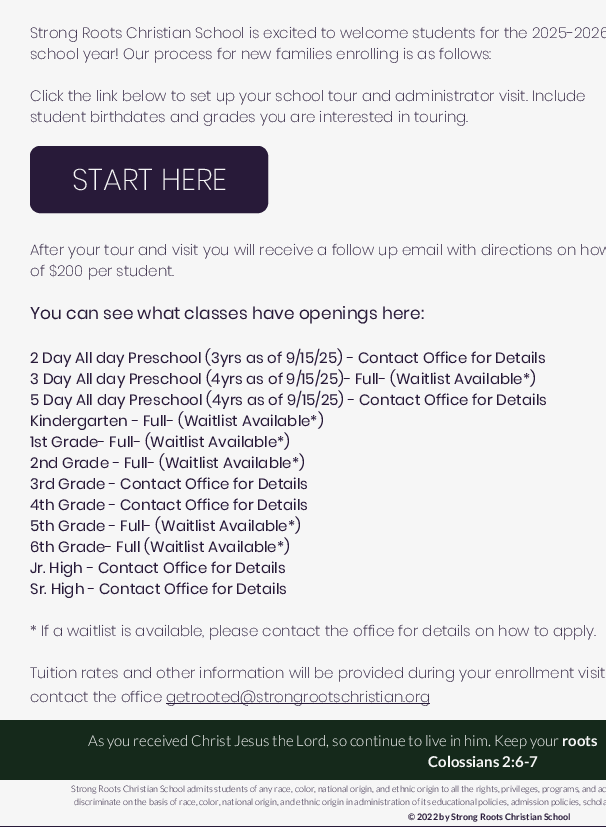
%!PS
<< /PageSize [606 827] >> setpagedevice
/rgb { 3 { 255 div 3 1 roll } repeat setrgbcolor } def
/font { [ exch dup neg 0 0 3 -1 roll 0 0 ] selectfont } def
/roundrect { 5 dict begin { /r /h /w /y /x } { exch def } forall
  x r add y moveto x w add y 2 copy h add r arct x w add y h add x 1 index r arct
  x y h add x y r arct x y 2 copy exch w add exch r arct closepath end } def
0 827 translate 1 -1 scale
4 setmiterlimit
246 246 246 rgb
0 0 606 827 rectfill
40 26 57 rgb
30.5 146.5 237 66 9.5 roundrect gsave fill grestore
stroke
[
  [166 703 264 1 40 26 57]
  [0 720 606 60 21 41 27]
  [0 826 606 1 40 26 57]
] { aload pop rgb rectfill } forall
/Poppins-ExtraLight 15 font
[
  [(Strong Roots Christian School is excited to welcome students for the 2025-2026) 30 38]
  [(school year! Our process for new families enrolling is as follows:) 30 59]
  [(Click the link below to set up your school tour and administrator visit. Include) 30 101]
  [(student birthdates and grades you are interested in touring.) 30 122]
] { aload pop moveto show } forall
/Poppins-ExtraLight 30 font
246 246 246 rgb
72 190 moveto (START HERE) show
/Poppins-ExtraLight 15 font
40 26 57 rgb
30 255 moveto (After your tour and visit you will receive a follow up email with directions on how) show
30 276 moveto (of $200 per student.) show
/Poppins-Regular 17 font
30 319 moveto (You can see what classes have openings here:) show
/Poppins-Regular 15 font
[
  [(2 Day All day Preschool \(3yrs as of 9/15/25\) - Contact Office for Details) 30 363]
  [(3 Day All day Preschool \(4yrs as of 9/15/25\)- Full- \(Waitlist Available*\)) 30 384]
  [(5 Day All day Preschool \(4yrs as of 9/15/25\) - Contact Office for Details) 30 405]
  [(Kindergarten - Full- \(Waitlist Available*\)) 30 426]
  [(1st Grade- Full- \(Waitlist Available*\)) 30 447]
  [(2nd Grade - Full- \(Waitlist Available*\)) 30 468]
  [(3rd Grade - Contact Office for Details) 30 489]
  [(4th Grade - Contact Office for Details) 30 510]
  [(5th Grade - Full- \(Waitlist Available*\)) 30 531]
  [(6th Grade- Full \(Waitlist Available*\)) 30 552]
  [(Jr. High - Contact Office for Details) 30 573]
  [(Sr. High - Contact Office for Details) 30 594]
] { aload pop moveto show } forall
/Poppins-ExtraLight 15 font
[
  [(* If a waitlist is available, please contact the office for details on how to apply.) 30 636]
  [(Tuition rates and other information will be provided during your enrollment visit) 30 678]
  [(contact the office) 30 702]
  [(getrooted@strongrootschristian.org) 166 702]
] { aload pop moveto show } forall
/Lato-Light 15 font
246 246 246 rgb
88 746 moveto (As you received Christ Jesus the Lord, so continue to live in him. Keep your) show
/Lato-Bold 15 font
562 746 moveto (roots) show
428 767 moveto (Colossians 2:6-7) show
/Lato-Light 9 font
40 26 57 rgb
71 792 moveto (Strong Roots Christian School admits students of any race, color, national origin, and ethnic origin to all the rights, privileges, programs, and ac) show
74 805 moveto (discriminate on the basis of race, color, national origin, and ethnic origin in administration of its educational policies, admission policies, schola) show
/Lato-Bold 9 font
408 820 moveto (© 2022 by Strong Roots Christian School) show
showpage
